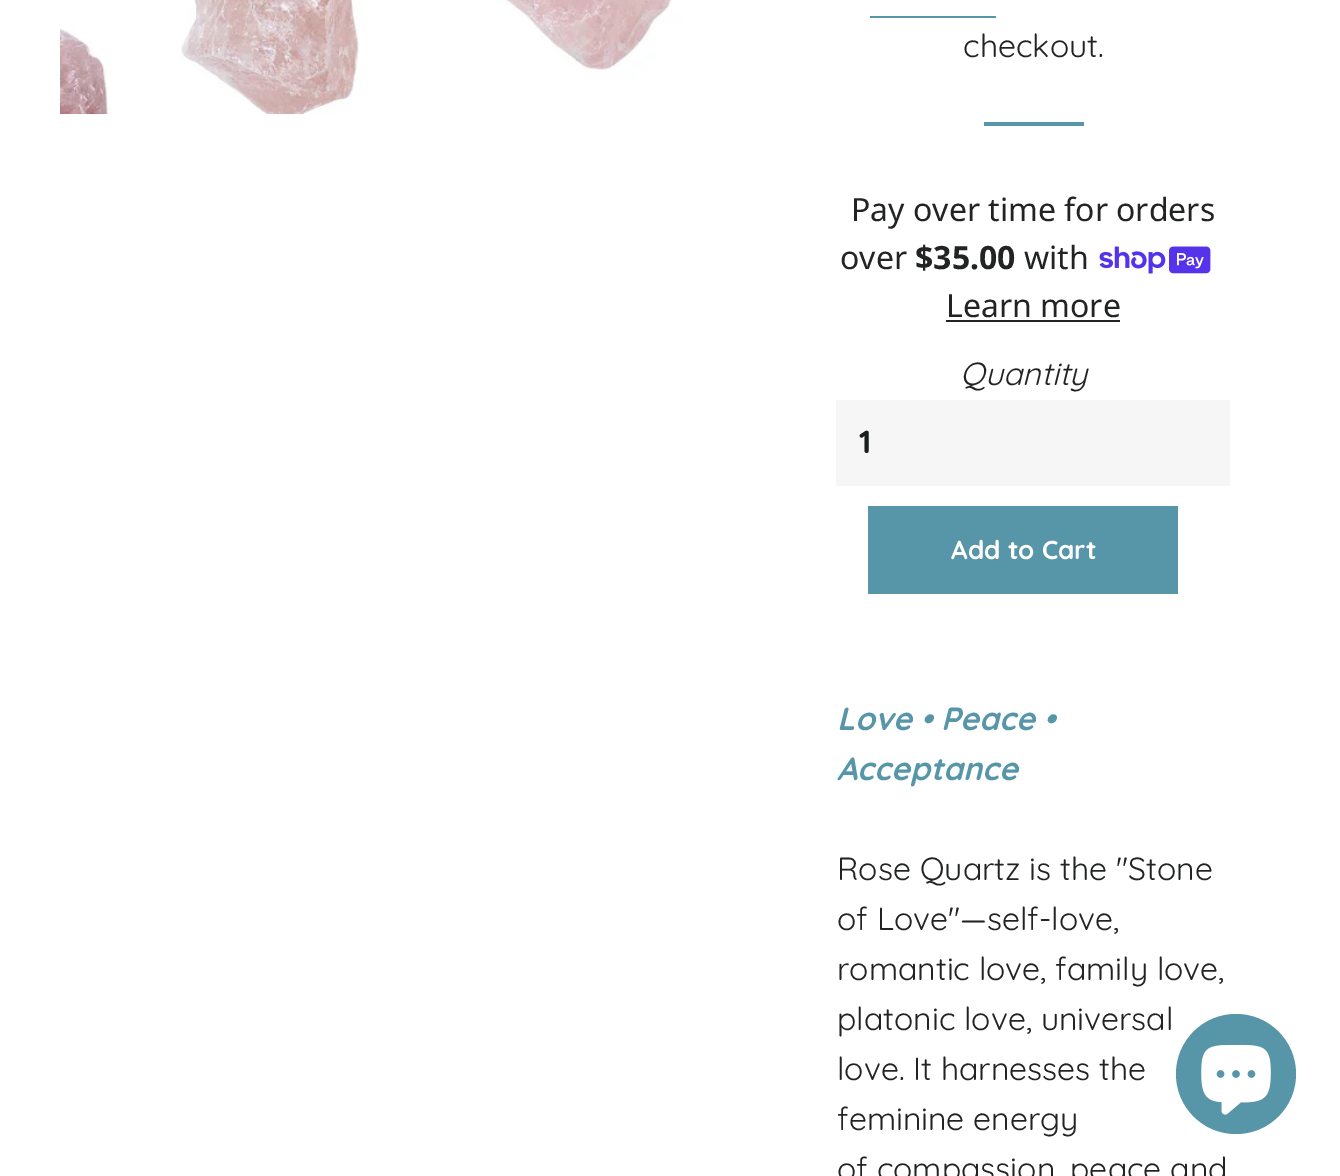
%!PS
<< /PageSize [1340 1176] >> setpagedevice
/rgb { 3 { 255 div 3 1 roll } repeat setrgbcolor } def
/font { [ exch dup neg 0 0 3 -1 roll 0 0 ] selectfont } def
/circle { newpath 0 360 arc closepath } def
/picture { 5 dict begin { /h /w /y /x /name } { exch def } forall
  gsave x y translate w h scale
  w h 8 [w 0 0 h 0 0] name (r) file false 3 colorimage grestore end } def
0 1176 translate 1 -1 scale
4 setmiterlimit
255 255 255 rgb
0 0 1340 1176 rectfill
(img/1.rgb) 60 0 686 114 picture
87 150 168 rgb
870 16 126 2 rectfill
984 122 100 4 rectfill
(img/2.rgb) 1099 246 112 28 picture
[
  [946 320 174 2 34 35 35]
  [836 400 394 86 246 246 246]
  [868 506 310 88 87 150 168]
] { aload pop rgb rectfill } forall
1236 1074 60 circle fill
(img/3.rgb) 1201 1045 70 70 picture
/Quicksand-Regular 32 font
34 35 35 rgb
963 57 moveto (checkout.) show
/NotoSans-Regular 32 font
851 221 moveto (Pay over time for orders) show
840 269 moveto (over) show
/NotoSans-Bold 32 font
915 269 moveto ($35.00) show
/NotoSans-Regular 32 font
1024 269 moveto (with) show
946 317 moveto (Learn more) show
/Quicksand-Italic 32 font
960 385 moveto (Quantity) show
/Quicksand-Bold 32 font
28 29 29 rgb
859 453 moveto (1) show
/Quicksand-Bold 26 font
255 255 255 rgb
951 559 moveto (Add to Cart) show
/Quicksand-BoldItalic 32 font
87 150 168 rgb
837 730 moveto (Love • Peace •) show
837 780 moveto (Acceptance) show
/Quicksand-Regular 32 font
34 35 35 rgb
[
  [(Rose Quartz is the "Stone) 837 880]
  [(of Love"—self-love,) 837 930]
  [(romantic love, family love,) 837 980]
  [(platonic love, universal) 837 1030]
  [(love. It harnesses the) 837 1080]
  [(feminine energy) 837 1130]
  [(of compassion, peace and) 837 1180]
] { aload pop moveto show } forall
showpage
